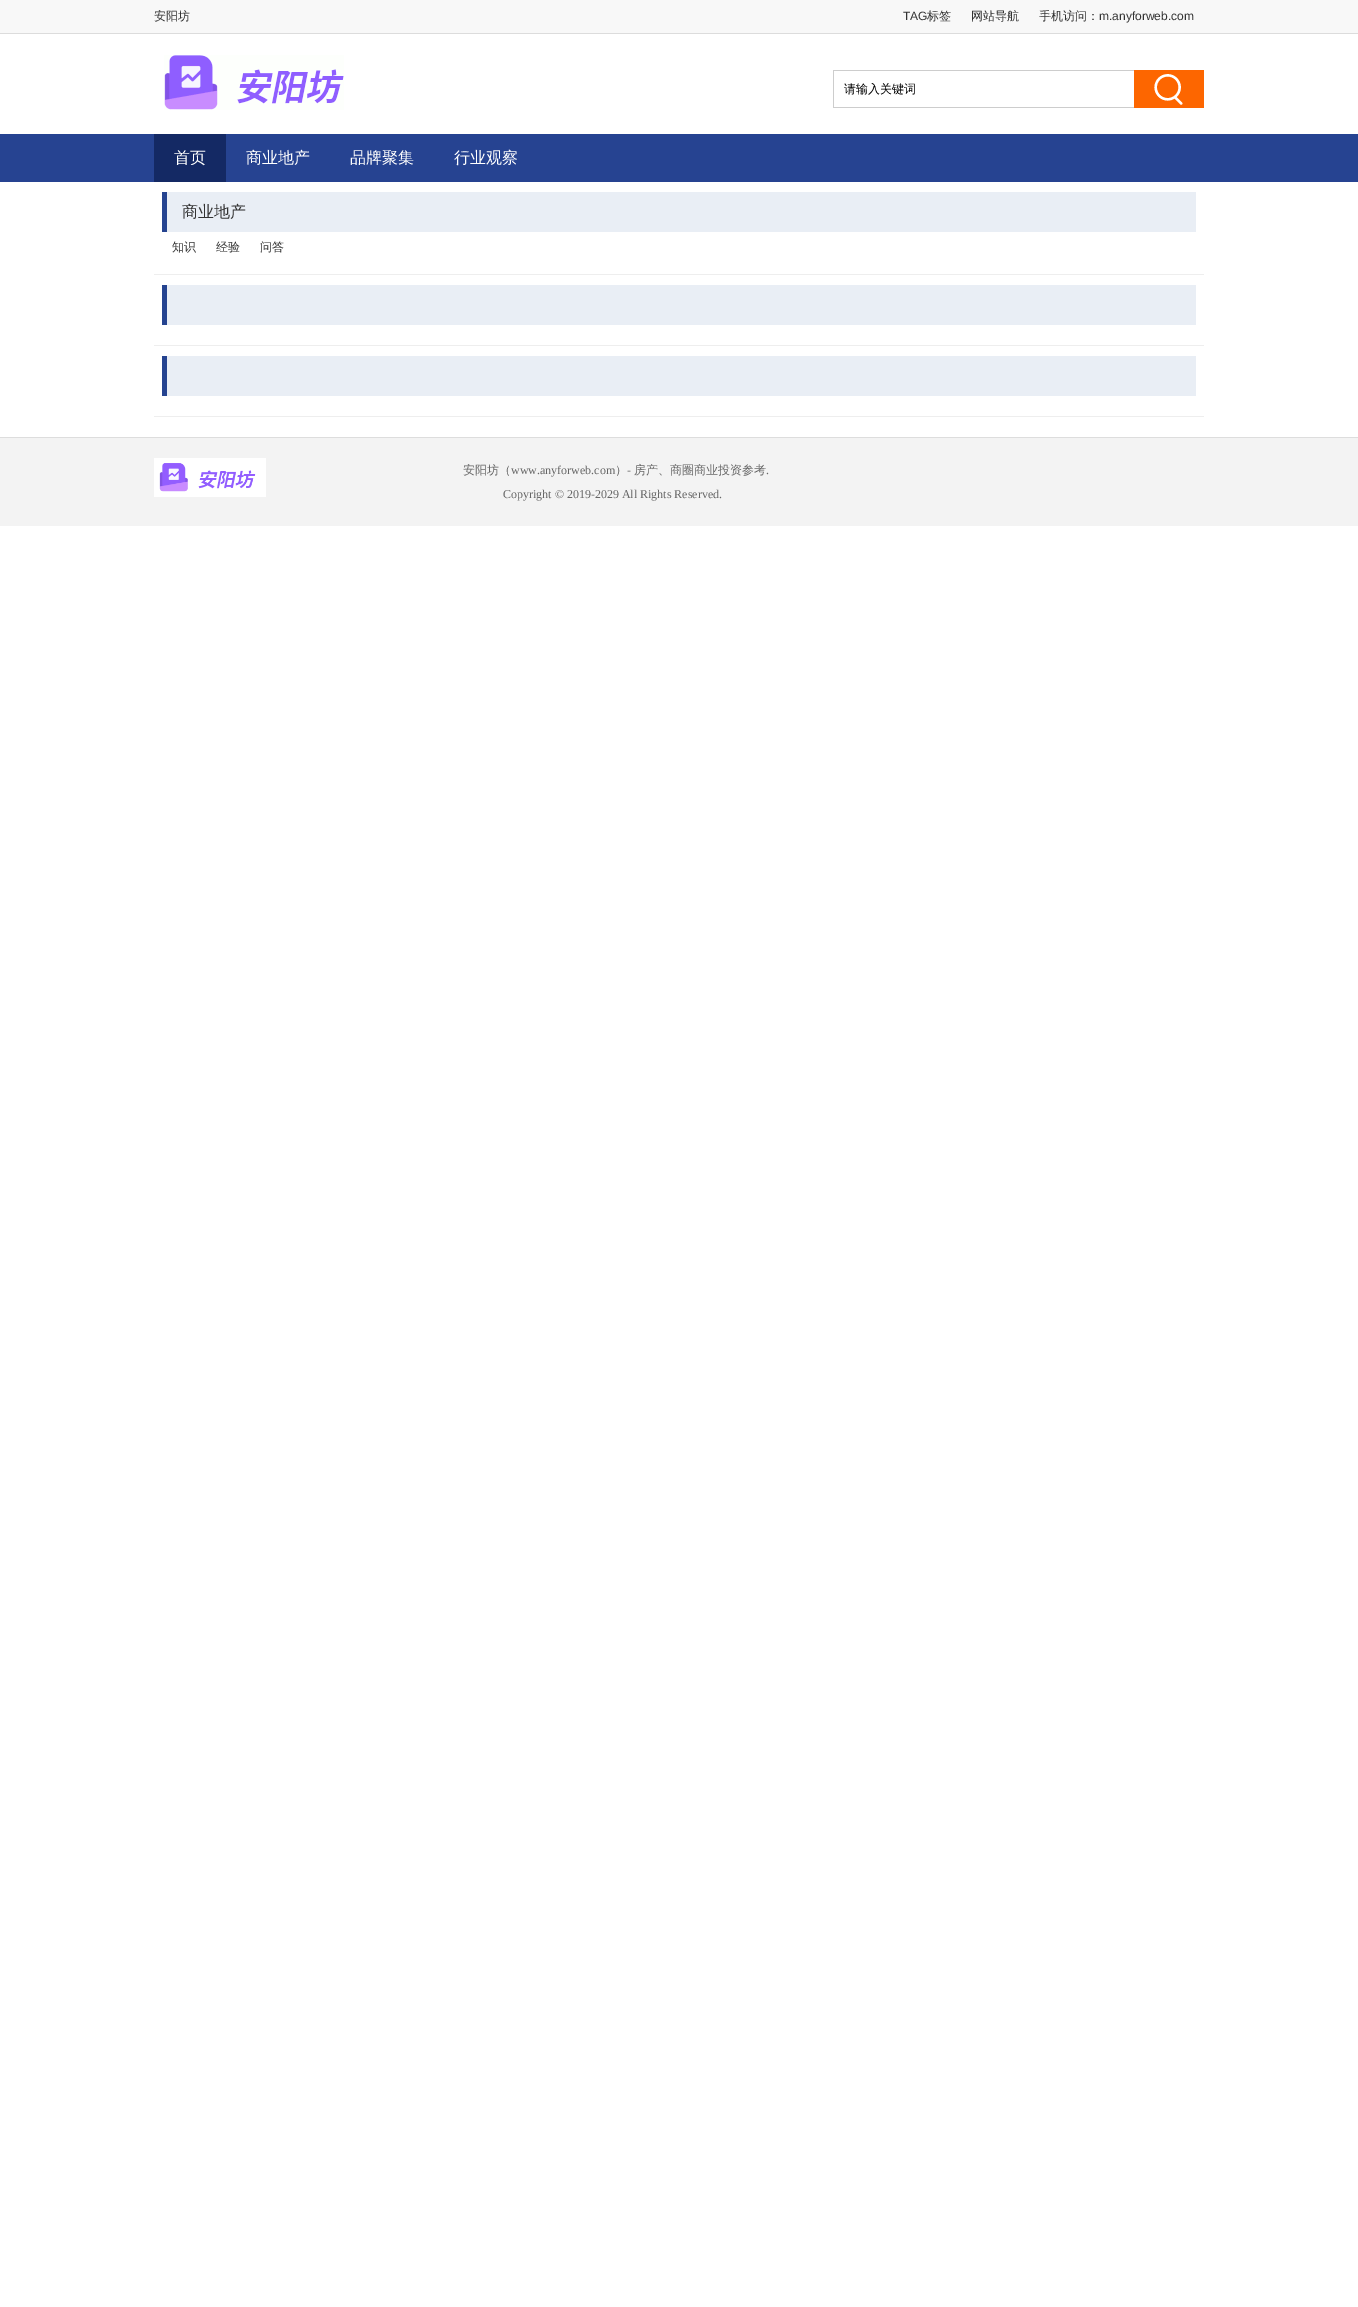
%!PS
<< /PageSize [1358 2307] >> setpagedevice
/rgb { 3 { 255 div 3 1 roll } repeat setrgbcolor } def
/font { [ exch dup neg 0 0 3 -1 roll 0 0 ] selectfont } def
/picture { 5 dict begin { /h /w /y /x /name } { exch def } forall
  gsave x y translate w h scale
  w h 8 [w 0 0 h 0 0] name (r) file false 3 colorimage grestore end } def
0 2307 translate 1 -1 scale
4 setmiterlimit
255 255 255 rgb
0 0 1358 2307 rectfill
248 248 248 rgb
0 0 1358 33 rectfill
220 220 220 rgb
0 33 1358 1 rectfill
(img/1.rgb) 164 55 180 55 picture
[
  [833 70 301 1 205 205 205]
  [833 107 301 1 205 205 205]
  [833 70 1 38 205 205 205]
  [1134 70 70 38 253 102 0]
] { aload pop rgb rectfill } forall
(img/2.rgb) 1154 74 29 31 picture
[
  [0 134 1358 48 38 67 145]
  [154 134 72 48 20 41 100]
  [154 274 1050 1 238 238 238]
  [167 192 1029 40 233 238 245]
  [162 192 5 40 37 67 144]
  [154 345 1050 1 238 238 238]
  [167 285 1029 40 233 238 245]
  [162 285 5 40 37 67 144]
  [154 416 1050 1 238 238 238]
  [167 356 1029 40 233 238 245]
  [162 356 5 40 37 67 144]
  [0 438 1358 88 243 243 243]
  [0 437 1358 1 221 221 221]
] { aload pop rgb rectfill } forall
(img/3.rgb) 154 458 112 39 picture
/WenQuanYiZenHei-Medium 12 font
51 51 51 rgb
154 20 moveto (安阳坊) show
/LiberationSans-Regular 12 font
903 20 moveto (TAG) show
/WenQuanYiZenHei-Medium 12 font
[
  [(标签) 927 20]
  [(网站导航) 971 20]
  [(手机访问：) 1039 20]
] { aload pop moveto show } forall
/LiberationSans-Regular 12 font
1099 20 moveto (m.anyforweb.com) show
/WenQuanYiZenHei-Medium 12 font
0 0 0 rgb
844 93 moveto (请输入关键词) show
/WenQuanYiZenHei-Medium 16 font
255 255 255 rgb
[
  [(首页) 174 163]
  [(商业地产) 246 163]
  [(品牌聚集) 350 163]
  [(行业观察) 454 163]
] { aload pop moveto show } forall
51 51 51 rgb
182 217 moveto (商业地产) show
/WenQuanYiZenHei-Medium 12 font
[
  [(知识) 172 251]
  [(经验) 216 251]
  [(问答) 260 251]
] { aload pop moveto show } forall
102 102 102 rgb
463 474 moveto (安阳坊（) show
/LiberationSerif-Regular 12 font
511 474 moveto (www.anyforweb.com) show
/WenQuanYiZenHei-Medium 12 font
615 474 moveto (）) show
/LiberationSerif-Regular 12 font
627 474 moveto (-) show
/WenQuanYiZenHei-Medium 12 font
634 474 moveto (房产、商圈商业投资参考) show
/LiberationSerif-Regular 12 font
766 474 moveto (.) show
503 498 moveto (Copyright © 2019-2029 All Rights Reserved.) show
showpage
